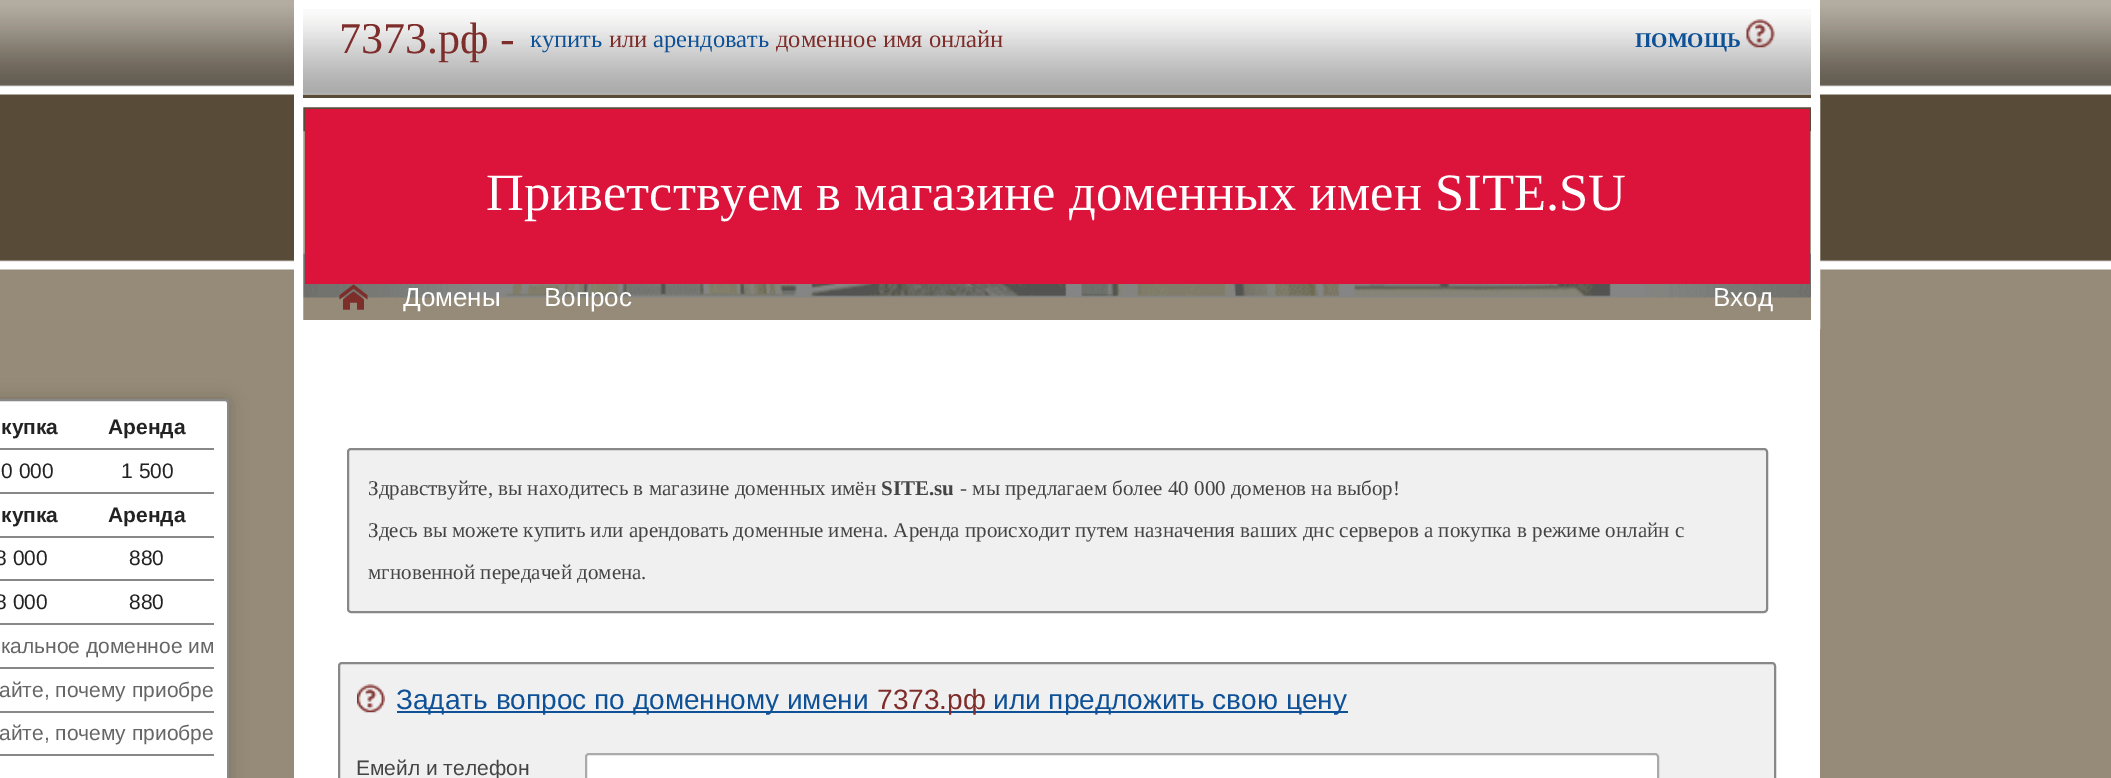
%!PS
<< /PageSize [2111 778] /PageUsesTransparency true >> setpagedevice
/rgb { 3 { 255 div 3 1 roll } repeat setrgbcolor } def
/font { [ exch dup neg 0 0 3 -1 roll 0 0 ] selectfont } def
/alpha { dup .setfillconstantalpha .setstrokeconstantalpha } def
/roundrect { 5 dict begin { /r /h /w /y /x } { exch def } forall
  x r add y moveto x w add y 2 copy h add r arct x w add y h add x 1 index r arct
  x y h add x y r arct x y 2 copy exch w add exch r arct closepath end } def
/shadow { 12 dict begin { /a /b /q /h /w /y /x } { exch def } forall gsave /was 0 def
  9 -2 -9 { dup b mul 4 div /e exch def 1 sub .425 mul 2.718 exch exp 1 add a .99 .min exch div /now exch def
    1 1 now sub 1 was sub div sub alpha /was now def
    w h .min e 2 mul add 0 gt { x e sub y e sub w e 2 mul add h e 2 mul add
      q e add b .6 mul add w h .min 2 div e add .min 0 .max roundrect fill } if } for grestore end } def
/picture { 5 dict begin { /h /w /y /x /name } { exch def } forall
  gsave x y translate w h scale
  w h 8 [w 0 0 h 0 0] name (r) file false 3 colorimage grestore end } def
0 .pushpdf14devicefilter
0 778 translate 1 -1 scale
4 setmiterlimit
150 139 121 rgb
0 0 2111 778 rectfill
(img/1.rgb) 0 0 2111 270 picture
(img/2.rgb) 303 9 1508 86 picture
[
  [303 0 1508 9 255 255 255]
  [1811 0 9 98 255 255 255]
  [294 0 9 98 255 255 255]
] { aload pop rgb rectfill } forall
(img/3.rgb) 1746 19 29 29 picture
(img/4.rgb) 303 131 1508 167 picture
9 setlinewidth
298.5 102.5 1517 222 rectstroke
220 20 60 rgb
305 109 1505 175 rectfill
(img/5.rgb) 339 284 29 26 picture
255 255 255 rgb
294 329 1526 449 rectfill
0 0 0 rgb
-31 399 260 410 4 9 0.2 shadow
255 255 255 rgb
-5 400 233 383 3 roundrect gsave fill grestore
136 136 136 rgb
2 setlinewidth
stroke
[
  [0 448 214 2 136 136 136]
  [0 492 214 2 136 136 136]
  [0 536 214 2 136 136 136]
  [0 579 214 2 136 136 136]
  [0 623 214 2 136 136 136]
  [0 667 214 2 136 136 136]
  [0 711 214 2 136 136 136]
  [0 754 214 2 136 136 136]
] { aload pop rgb rectfill } forall
240 240 240 rgb
348 449 1419 163 3 roundrect gsave fill grestore
136 136 136 rgb
stroke
240 240 240 rgb
339 663 1436 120 3 roundrect gsave fill grestore
136 136 136 rgb
stroke
(img/6.rgb) 357 684 28 29 picture
14 81 150 rgb
397 711 951 2 rectfill
255 255 255 rgb
586 754 1072 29 3 roundrect gsave fill grestore
170 170 170 rgb
stroke
/LiberationSerif-Regular 44 font
125 45 42 rgb
339 53 moveto (7373.рф -) show
/LiberationSerif-Regular 24.5 font
14 81 150 rgb
530 47 moveto (купить) show
125 45 42 rgb
609 47 moveto (или) show
14 81 150 rgb
653 47 moveto (арендовать) show
125 45 42 rgb
776 47 moveto (доменное имя онлайн) show
/LiberationSerif-Bold 21 font
14 81 150 rgb
1635 47 moveto (ПОМОЩЬ) show
/LiberationSerif-Regular 52.5 font
255 255 255 rgb
486 210 moveto (Приветствуем в магазине доменных имен SITE.SU) show
/LiberationSans-Regular 26 font
[
  [(Домены) 403 306]
  [(Вопрос) 544 306]
  [(Вход) 1713 306]
] { aload pop moveto show } forall
/LiberationSans-Bold 21 font
34 34 34 rgb
1 434 moveto (купка) show
108 434 moveto (Аренда) show
/LiberationSans-Regular 21 font
1 478 moveto (0 000) show
121 478 moveto (1 500) show
/LiberationSans-Bold 21 font
1 522 moveto (купка) show
108 522 moveto (Аренда) show
/LiberationSans-Regular 21 font
[
  [(8 000) -5 565]
  [(880) 129 565]
  [(8 000) -5 609]
  [(880) 129 609]
] { aload pop moveto show } forall
102 102 102 rgb
[
  [(кальное доменное им) 1 653]
  [(айте, почему приобре) -1 697]
  [(айте, почему приобре) -1 740]
] { aload pop moveto show } forall
/LiberationSerif-Regular 21 font
68 68 68 rgb
368 495 moveto (Здравствуйте, вы находитесь в магазине доменных имён) show
/LiberationSerif-Bold 21 font
881 495 moveto (SITE.su) show
/LiberationSerif-Regular 21 font
[
  [(- мы предлагаем более 40 000 доменов на выбор!) 960 495]
  [(Здесь вы можете купить или арендовать доменные имена. Аренда происходит путем назначения ваших днс серверов а покупка в режиме онлайн с) 368 537]
  [(мгновенной передачей домена.) 368 579]
] { aload pop moveto show } forall
/LiberationSans-Regular 28 font
14 81 150 rgb
396 709 moveto (Задать вопрос по доменному имени) show
125 45 42 rgb
877 709 moveto (7373.рф) show
14 81 150 rgb
993 709 moveto (или предложить свою цену) show
/LiberationSans-Regular 21 font
68 68 68 rgb
356 775 moveto (Емейл и телефон) show
.poppdf14devicefilter showpage
